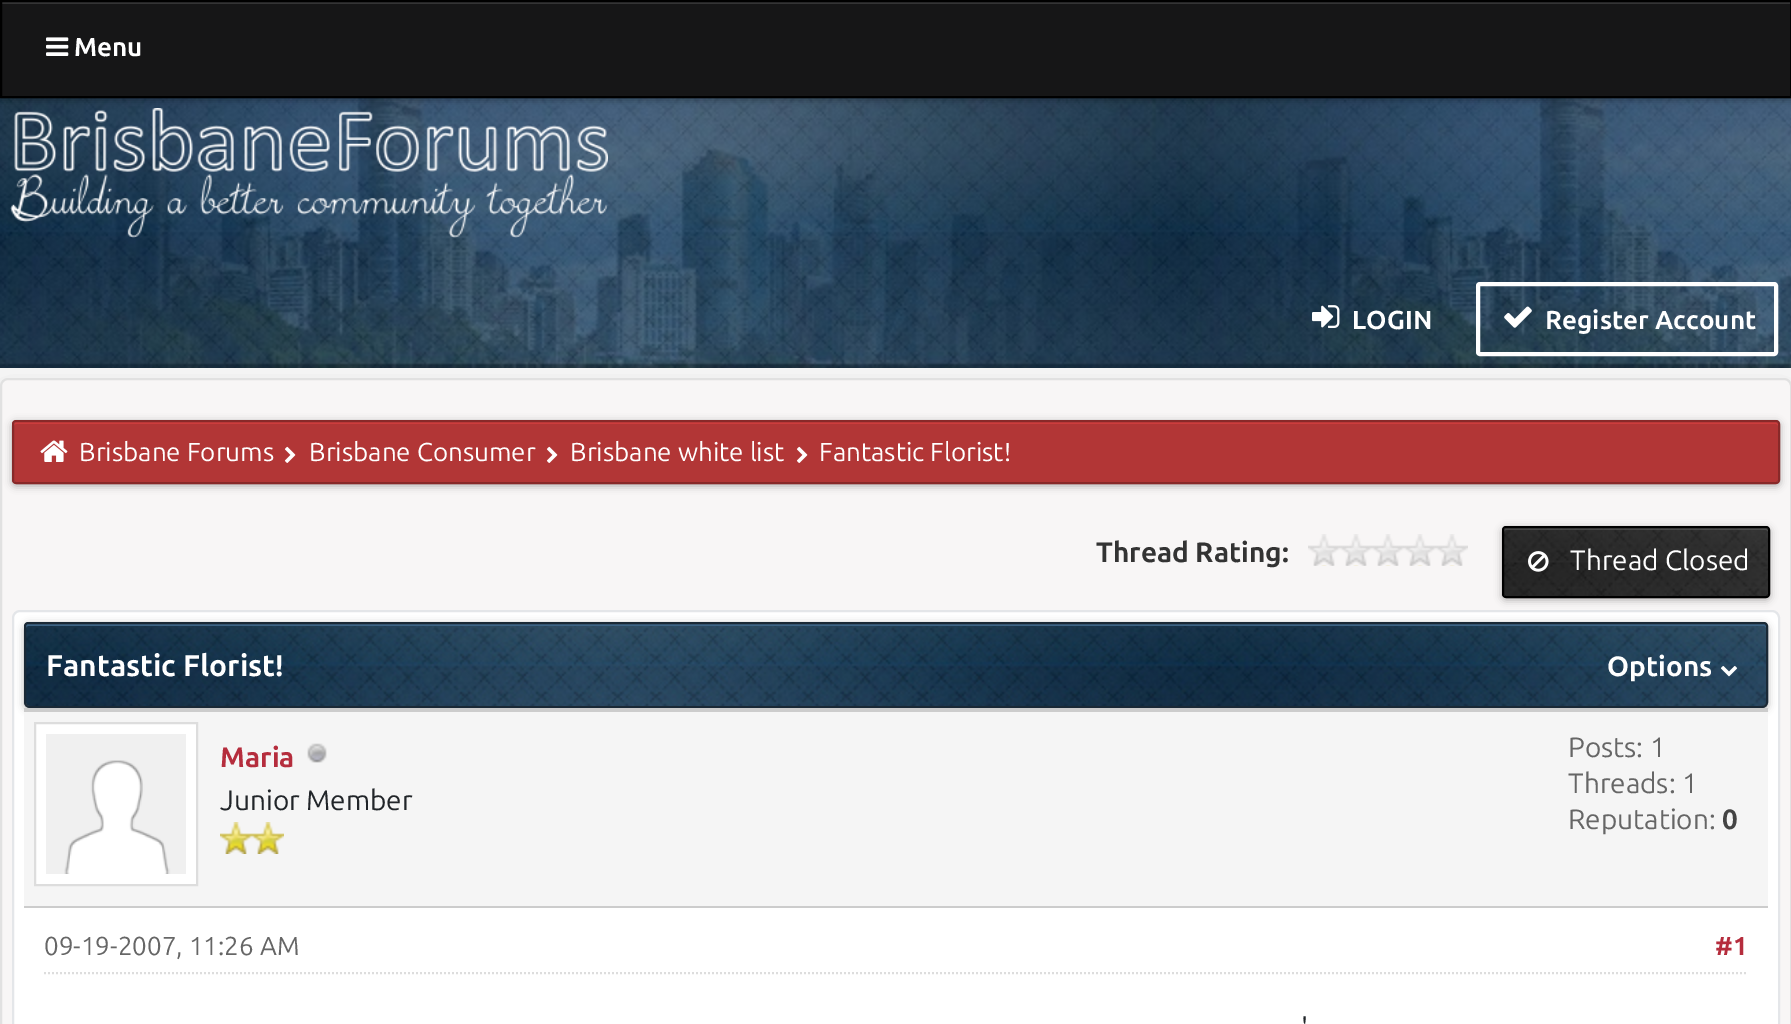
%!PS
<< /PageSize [1791 1024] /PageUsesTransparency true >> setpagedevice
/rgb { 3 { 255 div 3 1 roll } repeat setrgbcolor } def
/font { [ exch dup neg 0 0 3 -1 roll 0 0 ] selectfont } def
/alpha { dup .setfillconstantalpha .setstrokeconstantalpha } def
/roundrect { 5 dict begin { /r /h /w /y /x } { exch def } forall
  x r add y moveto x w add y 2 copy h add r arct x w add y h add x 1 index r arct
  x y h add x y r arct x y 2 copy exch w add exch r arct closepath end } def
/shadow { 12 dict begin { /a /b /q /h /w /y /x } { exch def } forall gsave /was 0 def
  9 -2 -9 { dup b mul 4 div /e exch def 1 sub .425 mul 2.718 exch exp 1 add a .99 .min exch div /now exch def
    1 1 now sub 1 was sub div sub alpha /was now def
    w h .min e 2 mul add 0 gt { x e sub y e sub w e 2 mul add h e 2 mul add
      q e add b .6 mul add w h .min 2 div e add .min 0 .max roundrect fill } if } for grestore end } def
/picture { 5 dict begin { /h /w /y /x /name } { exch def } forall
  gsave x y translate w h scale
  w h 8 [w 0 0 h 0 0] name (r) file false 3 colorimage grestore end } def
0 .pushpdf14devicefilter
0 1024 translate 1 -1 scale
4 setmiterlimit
247 247 247 rgb
0 0 1791 1024 rectfill
(img/1.rgb) 0 98 1791 270 picture
(img/3.rgb) 10 108 598 130 picture
0 0 0 rgb
0 2 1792 98 0 4 0.3 shadow
22 22 23 rgb
2 4 1788 92 rectfill
52 52 53 rgb
2 2 1788 2 rectfill
0 0 0 rgb
2 setlinewidth
1 1 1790 96 rectstroke
(img/2.rgb) 46 37 23 19 picture
(img/4.rgb) 1312 305 28 23 picture
255 255 255 rgb
4 setlinewidth
1478 284 298 70 2 roundrect stroke
(img/5.rgb) 1504 306 28 22 picture
0 0 0 rgb
0 394 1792 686 8 16 0.15 shadow
248 246 246 rgb
1 379 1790 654 7 roundrect gsave fill grestore
225 225 225 rgb
2 setlinewidth
stroke
0 0 0 rgb
12 422 1768 64 4 4 0.3 shadow
178 54 54 rgb
14 422 1764 60 2 roundrect fill
204 61 61 rgb
16 424 moveto 1776 424 lineto 1777 424 1778 425 1778 426 curveto 1778 423 lineto 1776 422 lineto 16 422 lineto 15 422 14 423 14 424 curveto 14 426 lineto 14 425 15 424 16 424 curveto closepath fill
136 41 41 rgb
13 421 1766 62 3 roundrect stroke
(img/6.rgb) 40 440 28 22 picture
(img/7.rgb) 284 446 12 17 picture
(img/7.rgb) 546 446 12 17 picture
(img/7.rgb) 796 446 12 17 picture
(img/8.rgb) 1308 534 160 32 picture
255 255 255 rgb
13 611 1766 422 7 roundrect gsave fill grestore
228 230 233 rgb
stroke
0 0 0 rgb
1502 528 268 72 4 4 0.3 shadow
(img/9.rgb) 1504 528 264 68 picture
0.13 alpha
255 255 255 rgb
1506 530 moveto 1766 530 lineto 1767 530 1768 531 1768 532 curveto 1768 530 lineto 1768 529 1767 528 1766 528 curveto 1506 528 lineto 1505 528 1504 529 1504 530 curveto 1504 532 lineto 1504 531 1505 530 1506 530 curveto closepath fill
1 alpha
0 0 0 rgb
1503 527 266 70 3 roundrect stroke
(img/10.rgb) 1528 551 21 21 picture
24 624 1744 86 6 4 0.3 shadow
(img/11.rgb) 26 624 1740 82 picture
61 100 133 rgb
28 626 moveto 1764 626 lineto 1765 626 1766 627 1766 628 curveto 1766 625 lineto 1764 624 lineto 28 624 lineto 27 624 26 625 26 626 curveto 26 628 lineto 26 627 27 626 28 626 curveto closepath fill
26 41 54 rgb
28 623 moveto 1764 623 lineto 1765.5 623 1767 624.5 1767 626 curveto 1767 702 lineto 1767 705 1765 707 1762 707 curveto 30 707 lineto 27 707 25 705 25 702 curveto 25 626 lineto 25 624.5 26.5 623 28 623 curveto closepath stroke
(img/12.rgb) 1720 666 18 11 picture
[
  [24 712 1744 194 245 245 245]
  [24 708 1744 4 204 204 204]
  [24 906 1744 2 204 204 204]
] { aload pop rgb rectfill } forall
255 255 255 rgb
35 723 moveto 197 723 lineto 197 885 lineto 35 885 lineto closepath gsave fill grestore
221 221 221 rgb
stroke
(img/13.rgb) 46 734 140 140 picture
(img/14.rgb) 307 743 20 20 picture
(img/15.rgb) 220 822 32 32 picture
(img/15.rgb) 252 822 32 32 picture
[2 2] 0 setdash
44 973 moveto 1748 973 lineto stroke
/Ubuntu-Bold 26 font
255 255 255 rgb
[
  [(Menu) 74 56]
  [(LOGIN) 1352 329]
  [(Register Account) 1545 329]
] { aload pop moveto show } forall
/Ubuntu-Regular 26 font
[
  [(Brisbane Forums) 79 461]
  [(Brisbane Consumer) 309 461]
  [(Brisbane white list) 570 461]
  [(Fantastic Florist!) 819 461]
] { aload pop moveto show } forall
/Ubuntu-Bold 28 font
51 51 51 rgb
1096 562 moveto (Thread Rating:) show
/Ubuntu-Regular 28 font
255 255 255 rgb
1570 570 moveto (Thread Closed) show
/Ubuntu-Bold 30 font
46 676 moveto (Fantastic Florist!) show
/Ubuntu-Bold 28 font
1607 676 moveto (Options) show
181 45 61 rgb
220 767 moveto (Maria) show
/Ubuntu-Regular 28 font
33 37 41 rgb
220 810 moveto (Junior Member) show
102 102 102 rgb
[
  [(Posts: 1) 1568 757]
  [(Threads: 1) 1568 793]
  [(Reputation:) 1568 829]
] { aload pop moveto show } forall
/Ubuntu-Bold 28 font
68 68 68 rgb
1722 829 moveto (0) show
/Ubuntu-Regular 26 font
102 102 102 rgb
44 955 moveto (09-19-2007, 11:26 AM) show
/Ubuntu-Bold 26 font
181 45 61 rgb
1715 955 moveto (#1) show
/Ubuntu-Regular 30 font
33 37 41 rgb
1301 1039 moveto (') show
.poppdf14devicefilter showpage
